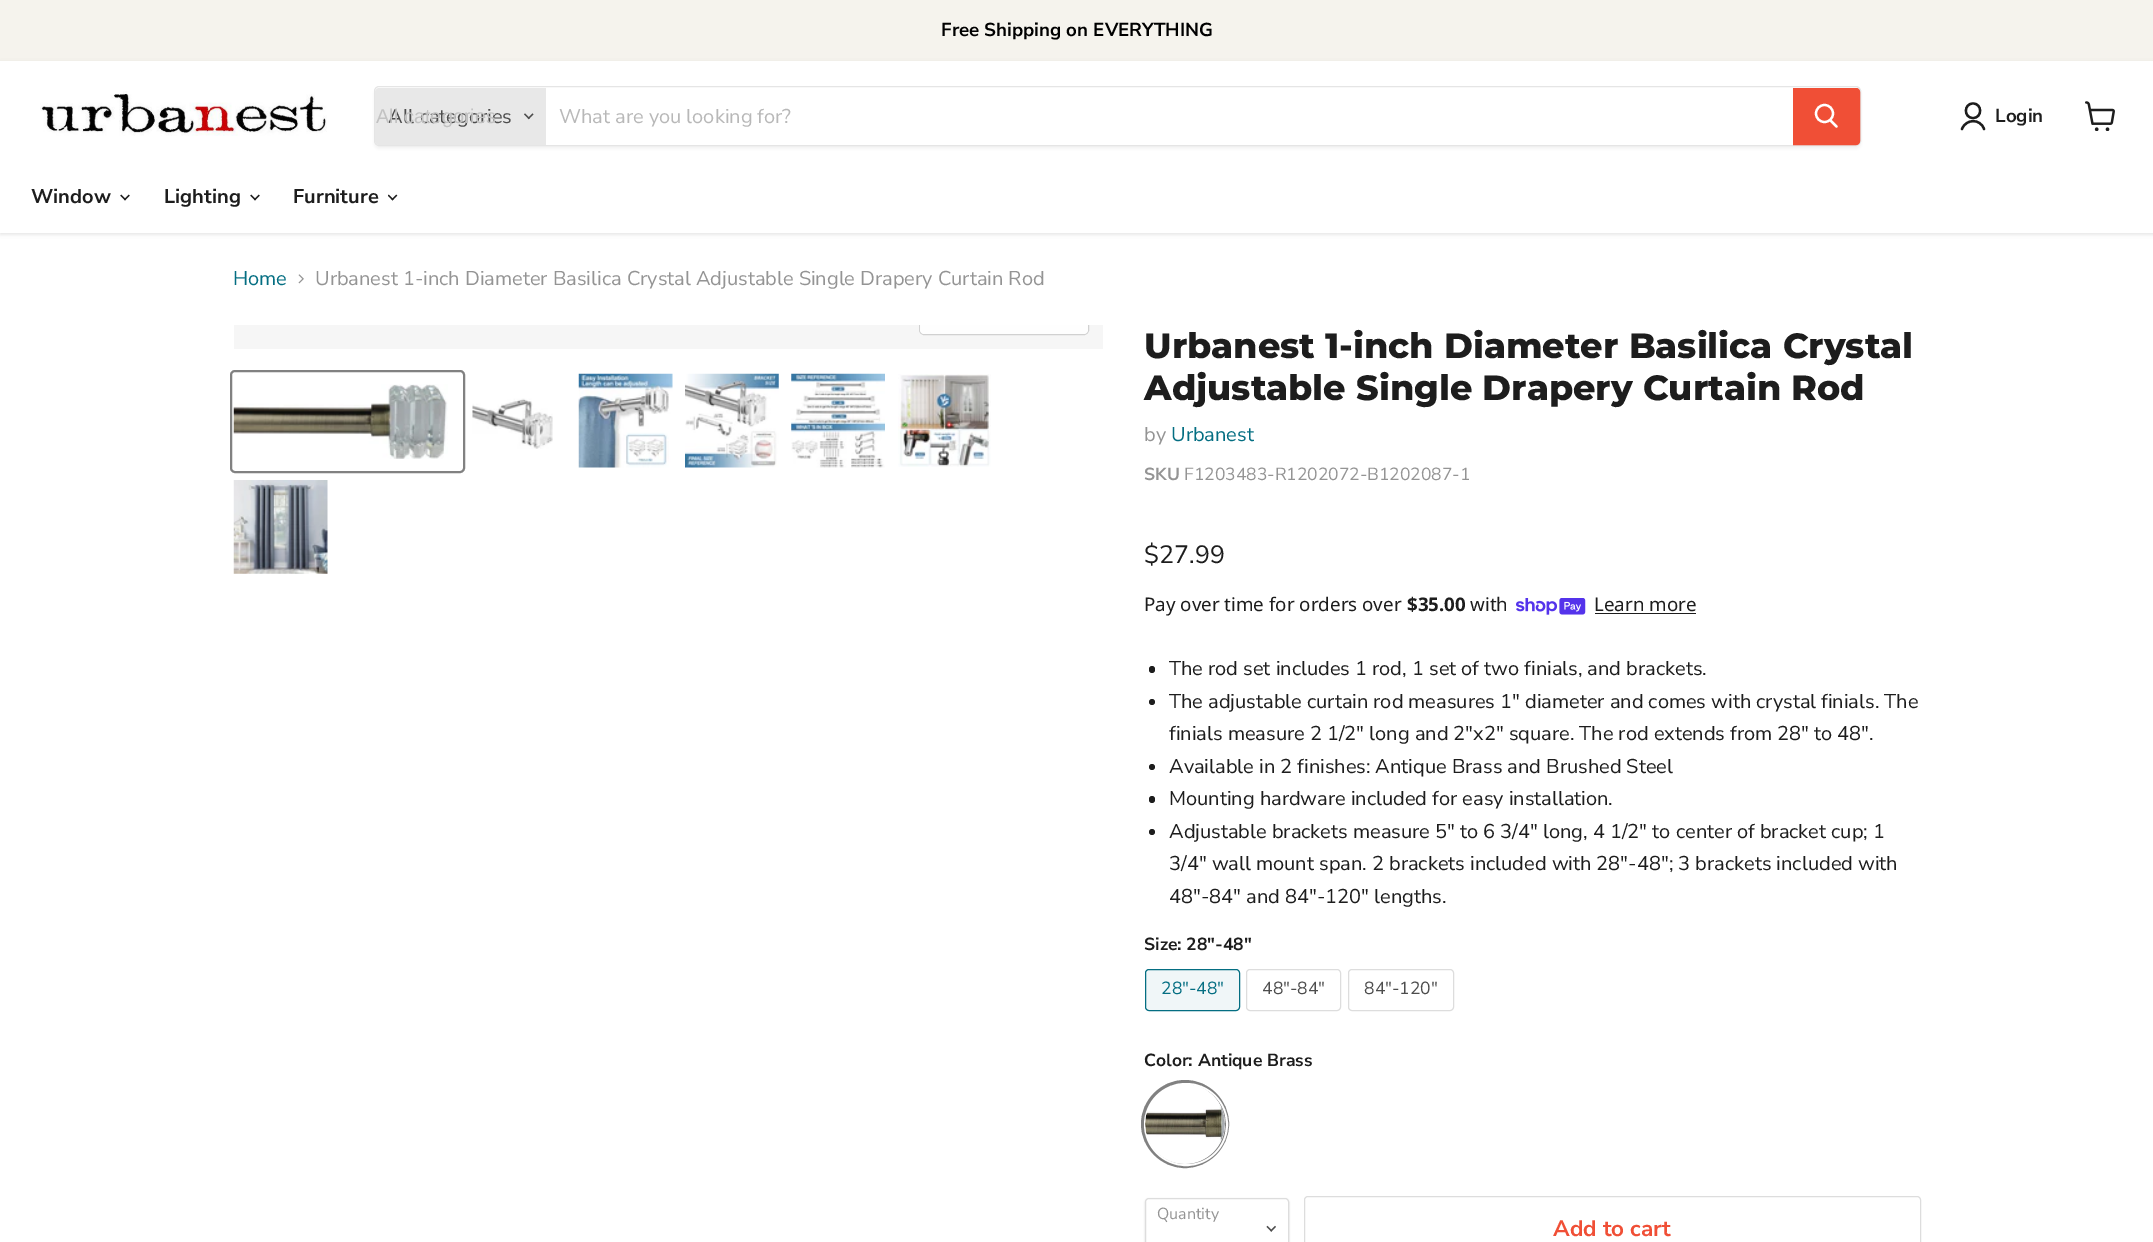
%!PS
<< /PageSize [2153 1242] /PageUsesTransparency true >> setpagedevice
/rgb { 3 { 255 div 3 1 roll } repeat setrgbcolor } def
/font { [ exch dup neg 0 0 3 -1 roll 0 0 ] selectfont } def
/alpha { dup .setfillconstantalpha .setstrokeconstantalpha } def
/circle { newpath 0 360 arc closepath } def
/roundrect { 5 dict begin { /r /h /w /y /x } { exch def } forall
  x r add y moveto x w add y 2 copy h add r arct x w add y h add x 1 index r arct
  x y h add x y r arct x y 2 copy exch w add exch r arct closepath end } def
/shadow { 12 dict begin { /a /b /q /h /w /y /x } { exch def } forall gsave /was 0 def
  9 -2 -9 { dup b mul 4 div /e exch def 1 sub .425 mul 2.718 exch exp 1 add a .99 .min exch div /now exch def
    1 1 now sub 1 was sub div sub alpha /was now def
    w h .min e 2 mul add 0 gt { x e sub y e sub w e 2 mul add h e 2 mul add
      q e add b .6 mul add w h .min 2 div e add .min 0 .max roundrect fill } if } for grestore end } def
/picture { 5 dict begin { /h /w /y /x /name } { exch def } forall
  gsave x y translate w h scale
  w h 8 [w 0 0 h 0 0] name (r) file false 3 colorimage grestore end } def
0 .pushpdf14devicefilter
0 1242 translate 1 -1 scale
4 setmiterlimit
255 255 255 rgb
0 0 2153 1242 rectfill
245 243 237 rgb
0 0 2153 61 rectfill
128 128 128 rgb
0 63 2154 171 0 2.5 0.25 shadow
255 255 255 rgb
0 61 2153 172 rectfill
(img/1.rgb) 40 91 287 45 picture
gsave
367 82 moveto 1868 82 lineto 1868 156 lineto 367 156 lineto closepath 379 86 moveto 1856 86 lineto 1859 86 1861 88 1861 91 curveto 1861 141 lineto 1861 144 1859 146 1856 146 curveto 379 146 lineto 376 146 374 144 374 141 curveto 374 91 lineto 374 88 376 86 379 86 curveto closepath eoclip newpath
128 128 128 rgb
374 89 1487 60 5 2 0.11 shadow
grestore
229 229 229 rgb
374.5 86.5 1486 59 4.5 roundrect stroke
232 232 232 rgb
379 88 moveto 546 88 lineto 546 145 lineto 379 145 lineto 377 145 375 143 375 141 curveto 375 92 lineto 375 90 377 88 379 88 curveto closepath fill
(img/2.rgb) 524 113 10 7 picture
240 79 54 rgb
1793.5 88.5 moveto 1856 88.5 lineto 1858 88.5 1859.5 90 1859.5 92 curveto 1859.5 141 lineto 1859.5 143 1858 144.5 1856 144.5 curveto 1793.5 144.5 lineto closepath gsave fill grestore
stroke
255 255 255 rgb
2.2 setlinewidth
1 setlinecap
1836.5 126.5 moveto 1830.5 120.5 lineto stroke
0 setlinecap
1824.5 113.5 8.5 circle stroke
29 29 29 rgb
2.3 setlinewidth
1 setlinecap
1 setlinejoin
1973 118 moveto 1982.5 118 1982.5 103.5 1973 103.5 curveto 1963.5 103.5 1963.5 118 1973 118 curveto closepath 1984 129 moveto 1980.5 118.5 1966 118.5 1962 129 curveto stroke
(img/3.rgb) 2085 101 30 30 picture
(img/4.rgb) 120 194 10 7 picture
(img/4.rgb) 250 194 10 7 picture
(img/5.rgb) 388 194 10 7 picture
(img/6.rgb) 298 274 6 10 picture
246 246 246 rgb
234 325 869 24 rectfill
gsave
234 325 869 24 rectclip
209 209 209 rgb
1 setlinewidth
0 setlinecap
0 setlinejoin
919.5 298.5 169 36 4.5 roundrect stroke
grestore
0.9 alpha
255 255 255 rgb
920 325 moveto 1088 325 lineto 1088 330 lineto 1088 332 1086 334 1084 334 curveto 924 334 lineto 922 334 920 332 920 330 curveto closepath fill
1 alpha
129 129 129 rgb
2 setlinewidth
0 setlinecap
0 setlinejoin
231 371 233 101 4 roundrect stroke
(img/7.rgb) 233 384 215 75 picture
(img/8.rgb) 472 398 81 51 picture
(img/9.rgb) 578 373 95 95 picture
(img/10.rgb) 685 373 94 95 picture
(img/11.rgb) 791 373 94 95 picture
(img/12.rgb) 898 374 93 93 picture
(img/13.rgb) 233 480 95 94 picture
(img/14.rgb) 1516 598 70 17 picture
29 29 29 rgb
1595 613 101 1 rectfill
1149 666 6 7 3 roundrect fill
1152 702 3 circle fill
1152 767 3 circle fill
1149 796 6 7 3 roundrect fill
1152 832 3 circle fill
240 246 248 rgb
1145.5 969.5 94 41 3.5 roundrect gsave fill grestore
4 110 130 rgb
1 setlinewidth
stroke
221 221 221 rgb
1246.5 969.5 94 41 3.5 roundrect stroke
1348.5 969.5 105 41 3.5 roundrect stroke
129 129 129 rgb
4 setlinewidth
1185 1124 42 circle stroke
255 255 255 rgb
2 setlinewidth
1145 1084 82 81 40.5 roundrect stroke
(img/15.rgb) 1145 1086 80 78 picture
0 0 0 rgb
1145 1199 144 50 4 1 0.15 shadow
255 255 255 rgb
1145.5 1198.5 143 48 3.5 roundrect gsave fill grestore
221 221 221 rgb
1 setlinewidth
stroke
(img/16.rgb) 1266 1225 10 7 picture
1304.5 1196.5 616 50 3.5 roundrect stroke
/NunitoSans-Bold 18.75 font
0 0 0 rgb
941 36 moveto (Free Shipping on EVERYTHING) show
/NunitoSans-Regular 20 font
77 77 77 rgb
388 123 moveto (All categories) show
/LiberationSans-Regular 20 font
194 194 194 rgb
376 123 moveto (All categories) show
/NunitoSans-Regular 20 font
184 184 184 rgb
559 123 moveto (What are you looking for?) show
/NunitoSans-Bold 18.75 font
29 29 29 rgb
1995 122 moveto (Login) show
/NunitoSans-Bold 20 font
[
  [(Window) 31 203]
  [(Lighting) 164 203]
  [(Furniture) 293 203]
] { aload pop moveto show } forall
/NunitoSans-Regular 20 font
4 110 130 rgb
233 285 moveto (Home) show
148 148 148 rgb
315 285 moveto (Urbanest 1-inch Diameter Basilica Crystal Adjustable Single Drapery Curtain Rod) show
/Montserrat-ExtraBold 35 font
29 29 29 rgb
1144 358 moveto (Urbanest 1-inch Diameter Basilica Crystal) show
1144 400 moveto (Adjustable Single Drapery Curtain Rod) show
/NunitoSans-Regular 20 font
148 148 148 rgb
1144 441 moveto (by) show
4 110 130 rgb
1171 441 moveto (Urbanest) show
/NunitoSans-Bold 17.5 font
148 148 148 rgb
1144 480 moveto (SKU) show
/NunitoSans-Regular 17.5 font
1184 480 moveto (F1203483-R1202072-B1202087-1) show
/NunitoSans-Regular 25 font
29 29 29 rgb
1144 563 moveto ($27.99) show
/NotoSans-Regular 18.75 font
1144 611 moveto (Pay over time for orders over) show
/NotoSans-Bold 18.75 font
1407 611 moveto ($35.00) show
/NotoSans-Regular 18.75 font
1470 611 moveto (with) show
1594 611 moveto (Learn more) show
/NunitoSans-Regular 20 font
[
  [(The rod set includes 1 rod, 1 set of two finials, and brackets.) 1169 675]
  [(The adjustable curtain rod measures 1" diameter and comes with crystal finials. The) 1169 708]
  [(finials measure 2 1/2" long and 2"x2" square. The rod extends from 28" to 48".) 1169 740]
  [(Available in 2 finishes: Antique Brass and Brushed Steel) 1169 773]
  [(Mounting hardware included for easy installation.) 1169 805]
  [(Adjustable brackets measure 5" to 6 3/4" long, 4 1/2" to center of bracket cup; 1) 1169 838]
  [(3/4" wall mount span. 2 brackets included with 28"-48"; 3 brackets included with) 1169 870]
  [(48"-84" and 84"-120" lengths.) 1169 903]
] { aload pop moveto show } forall
/NunitoSans-Bold 17.5 font
1144 950 moveto (Size: 28"-48") show
/NunitoSans-Regular 17.5 font
4 110 130 rgb
1161 994 moveto (28"-48") show
77 77 77 rgb
1262 994 moveto (48"-84") show
1364 994 moveto (84"-120") show
/NunitoSans-Bold 17.5 font
29 29 29 rgb
1144 1066 moveto (Color: Antique Brass) show
/NunitoSans-Regular 16 font
148 148 148 rgb
1157 1219 moveto (Quantity) show
/NunitoSans-Bold 22.5 font
240 79 54 rgb
1553 1236 moveto (Add to cart) show
.poppdf14devicefilter showpage
